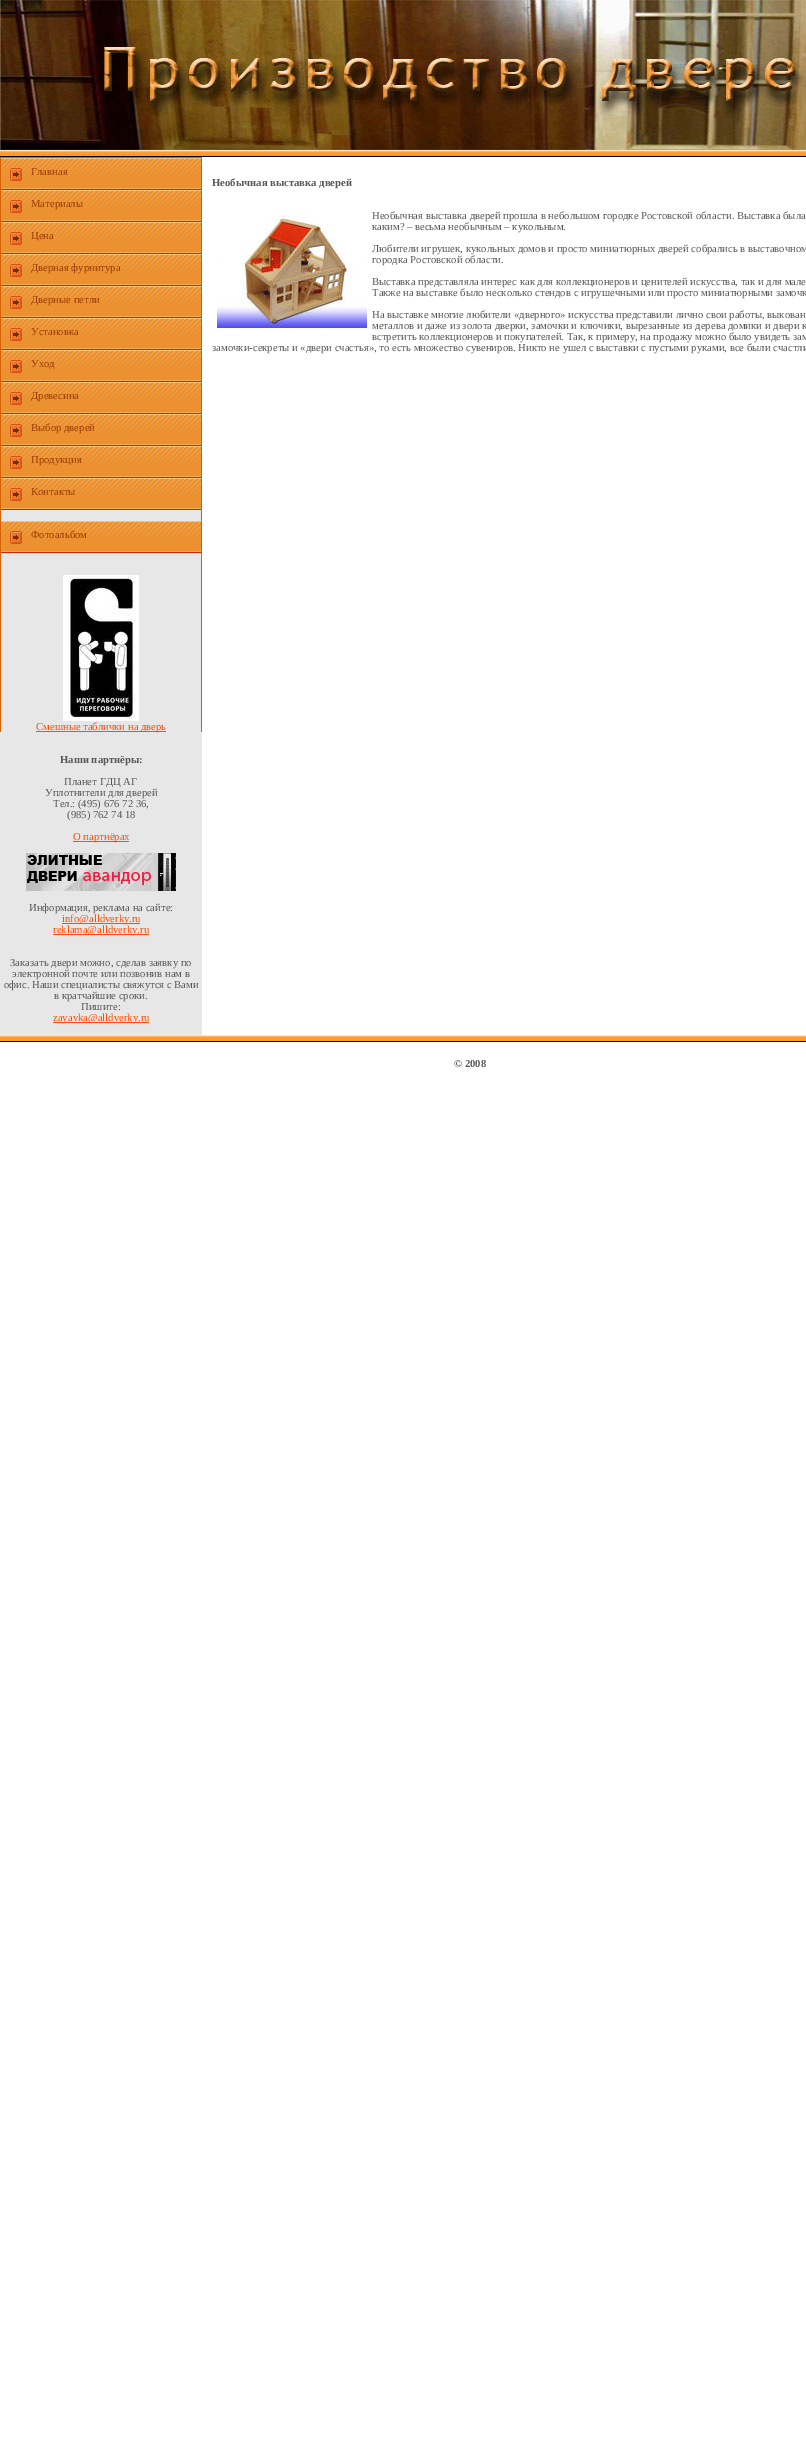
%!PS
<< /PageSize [806 2459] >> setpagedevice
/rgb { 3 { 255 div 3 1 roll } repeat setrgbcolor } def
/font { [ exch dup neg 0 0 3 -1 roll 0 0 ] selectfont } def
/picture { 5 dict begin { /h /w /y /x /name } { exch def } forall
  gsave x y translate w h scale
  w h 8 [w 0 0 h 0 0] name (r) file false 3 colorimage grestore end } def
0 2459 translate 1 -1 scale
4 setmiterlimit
255 255 255 rgb
0 0 806 2459 rectfill
(img/1.rgb) 0 0 806 150 picture
(img/2.rgb) 0 150 806 7 picture
[
  [0 510 202 525 231 231 231]
  [0 157 202 1 215 97 0]
  [201 157 1 575 215 97 0]
  [0 157 1 575 215 97 0]
] { aload pop rgb rectfill } forall
(img/3.rgb) 1 158 200 32 picture
(img/3.rgb) 1 190 200 32 picture
(img/3.rgb) 1 222 200 32 picture
(img/3.rgb) 1 254 200 32 picture
(img/3.rgb) 1 286 200 32 picture
(img/3.rgb) 1 318 200 32 picture
(img/3.rgb) 1 350 200 32 picture
(img/3.rgb) 1 382 200 32 picture
(img/3.rgb) 1 414 200 32 picture
(img/3.rgb) 1 446 200 32 picture
(img/3.rgb) 1 478 200 32 picture
(img/3.rgb) 1 521 200 32 picture
(img/4.rgb) 63 575 76 146 picture
255 78 0 rgb
36 731 130 1 rectfill
73 841 56 1 rectfill
(img/5.rgb) 26 853 150 38 picture
[
  [62 923 78 1 255 78 0]
  [53 934 96 1 255 78 0]
  [53 1022 96 1 255 78 0]
] { aload pop rgb rectfill } forall
(img/6.rgb) 217 215 150 113 picture
(img/2.rgb) 0 1035 806 7 picture
/LiberationSerif-Regular 10.67 font
158 60 2 rgb
[
  [(Главная) 31 175]
  [(Материалы) 31 207]
  [(Цена) 31 239]
  [(Дверная фурнитура) 31 271]
  [(Дверные петли) 31 303]
  [(Установка) 31 335]
  [(Уход) 31 367]
  [(Древесина) 31 399]
  [(Выбор дверей) 31 431]
  [(Продукция) 31 463]
  [(Контакты) 31 495]
  [(Фотоальбом) 31 538]
] { aload pop moveto show } forall
255 78 0 rgb
36 730 moveto (Смешные таблички на дверь) show
/LiberationSerif-Bold 10.67 font
89 89 89 rgb
60 763 moveto (Наши партнёры:) show
/LiberationSerif-Regular 10.67 font
[
  [(Планет ГДЦ АГ) 64 785]
  [(Уплотнители для дверей) 45 796]
  [(Тел.: \(495\) 676 72 36,) 53 807]
  [(\(985\) 762 74 18) 67 818]
] { aload pop moveto show } forall
255 78 0 rgb
73 840 moveto (О партнёрах) show
89 89 89 rgb
29 911 moveto (Информация, реклама на сайте:) show
255 78 0 rgb
62 922 moveto (info@alldverky.ru) show
53 933 moveto (reklama@alldverky.ru) show
89 89 89 rgb
[
  [(Заказать двери можно, сделав заявку по) 10 966]
  [(электронной почте или позвонив нам в) 12 977]
  [(офис. Наши специалисты свяжутся с Вами) 4 988]
  [(в кратчайшие сроки.) 54 999]
  [(Пишите:) 81 1010]
] { aload pop moveto show } forall
255 78 0 rgb
53 1021 moveto (zayavka@alldverky.ru) show
/LiberationSerif-Bold 10.67 font
89 89 89 rgb
212 186 moveto (Необычная выставка дверей) show
/LiberationSerif-Regular 10.67 font
[
  [(Необычная выставка дверей прошла в небольшом городке Ростовской области. Выставка была) 372 219]
  [(каким? – весьма необычным – кукольным.) 372 230]
  [(Любители игрушек, кукольных домов и просто миниатюрных дверей собрались в выставочном) 372 252]
  [(городка Ростовской области.) 372 263]
  [(Выставка представляла интерес как для коллекционеров и ценителей искусства, так и для мале) 372 285]
  [(Также на выставке было несколько стендов с игрушечными или просто миниатюрными замочк) 372 296]
  [(На выставке многие любители «дверного» искусства представили лично свои работы, выкован) 372 318]
  [(металлов и даже из золота дверки, замочки и ключики, вырезанные из дерева домики и двери к) 372 329]
  [(встретить коллекционеров и покупателей. Так, к примеру, на продажу можно было увидеть зам) 372 340]
  [(замочки-секреты и «двери счастья», то есть множество сувениров. Никто не ушел с выставки с пустыми руками, все были счастли) 212 351]
] { aload pop moveto show } forall
/LiberationSerif-Bold 10.67 font
454 1067 moveto (© 2008) show
showpage
